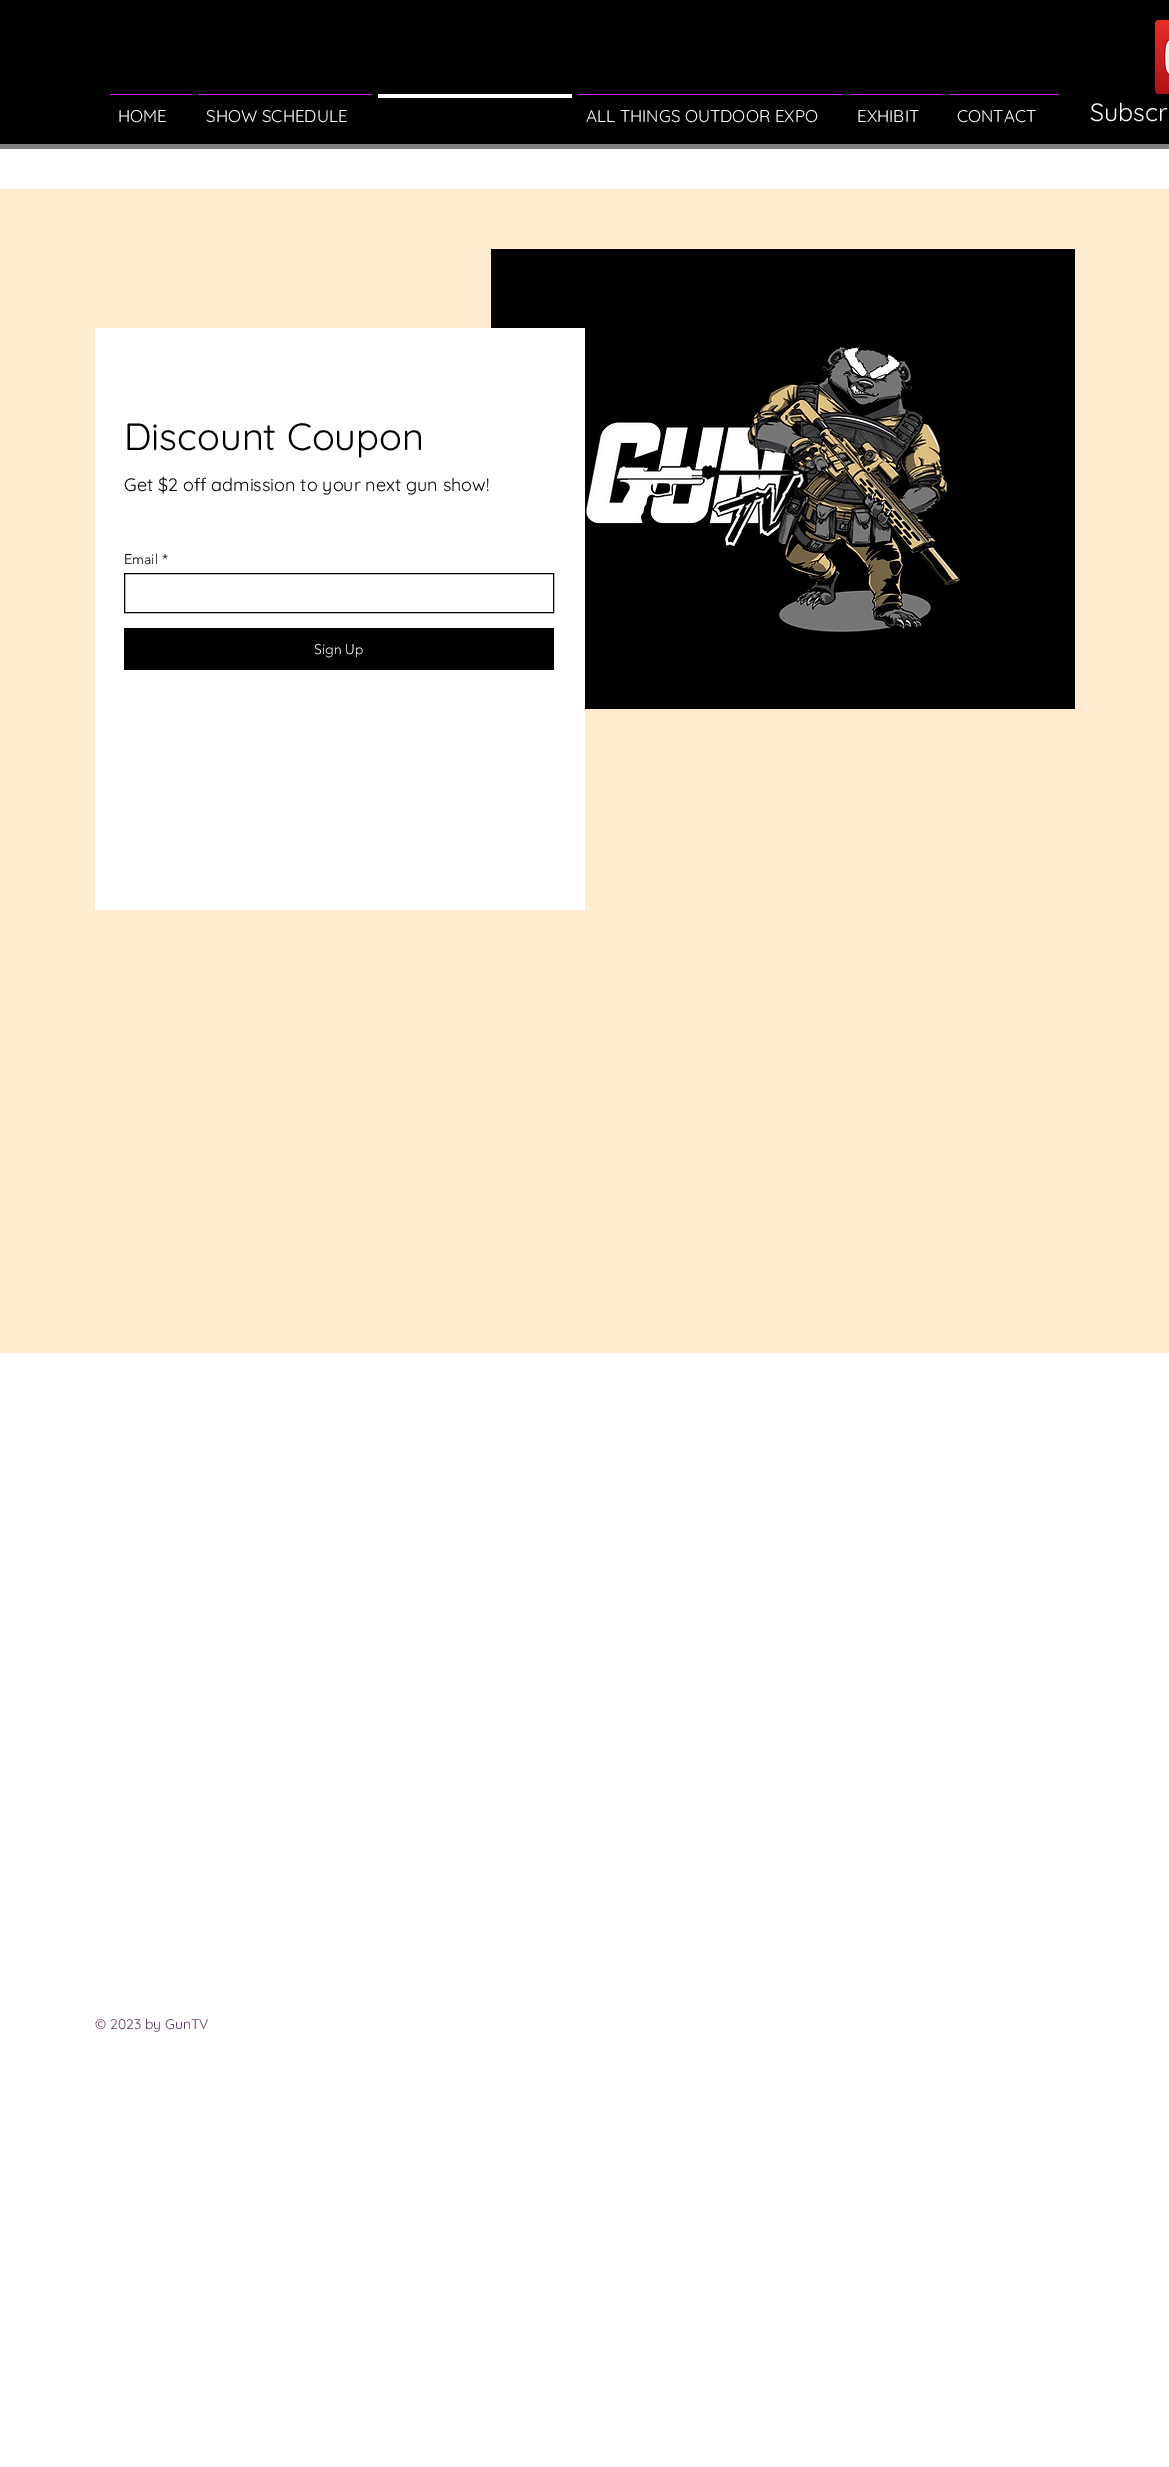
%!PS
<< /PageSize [1169 2467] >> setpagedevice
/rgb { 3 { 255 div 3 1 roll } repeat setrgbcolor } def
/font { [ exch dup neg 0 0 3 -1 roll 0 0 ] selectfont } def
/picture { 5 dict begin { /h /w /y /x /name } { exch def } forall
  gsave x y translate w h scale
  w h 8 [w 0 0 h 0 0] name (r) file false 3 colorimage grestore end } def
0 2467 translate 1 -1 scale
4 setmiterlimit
255 255 255 rgb
0 0 1169 2467 rectfill
128 128 128 rgb
0 144 1169 5 rectfill
0 0 0 rgb
0 0 1169 144 rectfill
(img/1.rgb) 1155 20 14 74 picture
[
  [378 94 194 4 255 255 255]
  [110 94 82 1 202 41 236]
  [198 94 174 1 202 41 236]
  [578 94 265 1 202 41 236]
  [849 94 94 1 202 41 236]
  [949 94 110 1 202 41 236]
  [0 189 1169 1164 254 235 208]
] { aload pop rgb rectfill } forall
(img/2.rgb) 491 249 584 460 picture
255 255 255 rgb
95 328 490 582 rectfill
0 0 0 rgb
124.5 573.5 429 39 rectstroke
124 628 430 42 rectfill
/Quicksand-Regular 17 font
255 255 255 rgb
[
  [(HOME) 118 122]
  [(SHOW SCHEDULE) 206 122]
  [(ALL THINGS OUTDOOR EXPO) 586 122]
  [(EXHIBIT) 857 122]
  [(CONTACT) 957 122]
] { aload pop moveto show } forall
/Quicksand-Regular 25 font
1090 121 moveto (Subscr) show
/Quicksand-Regular 38 font
0 0 0 rgb
124 450 moveto (Discount Coupon) show
/Quicksand-Regular 18 font
124 491 moveto (Get $2 off admission to your next gun show!) show
/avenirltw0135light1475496-Light 14 font
124 564 moveto (Email *) show
255 255 255 rgb
314 654 moveto (Sign Up) show
/Quicksand-Regular 14 font
99 55 97 rgb
95 2029 moveto (© 2023 by GunTV) show
showpage
